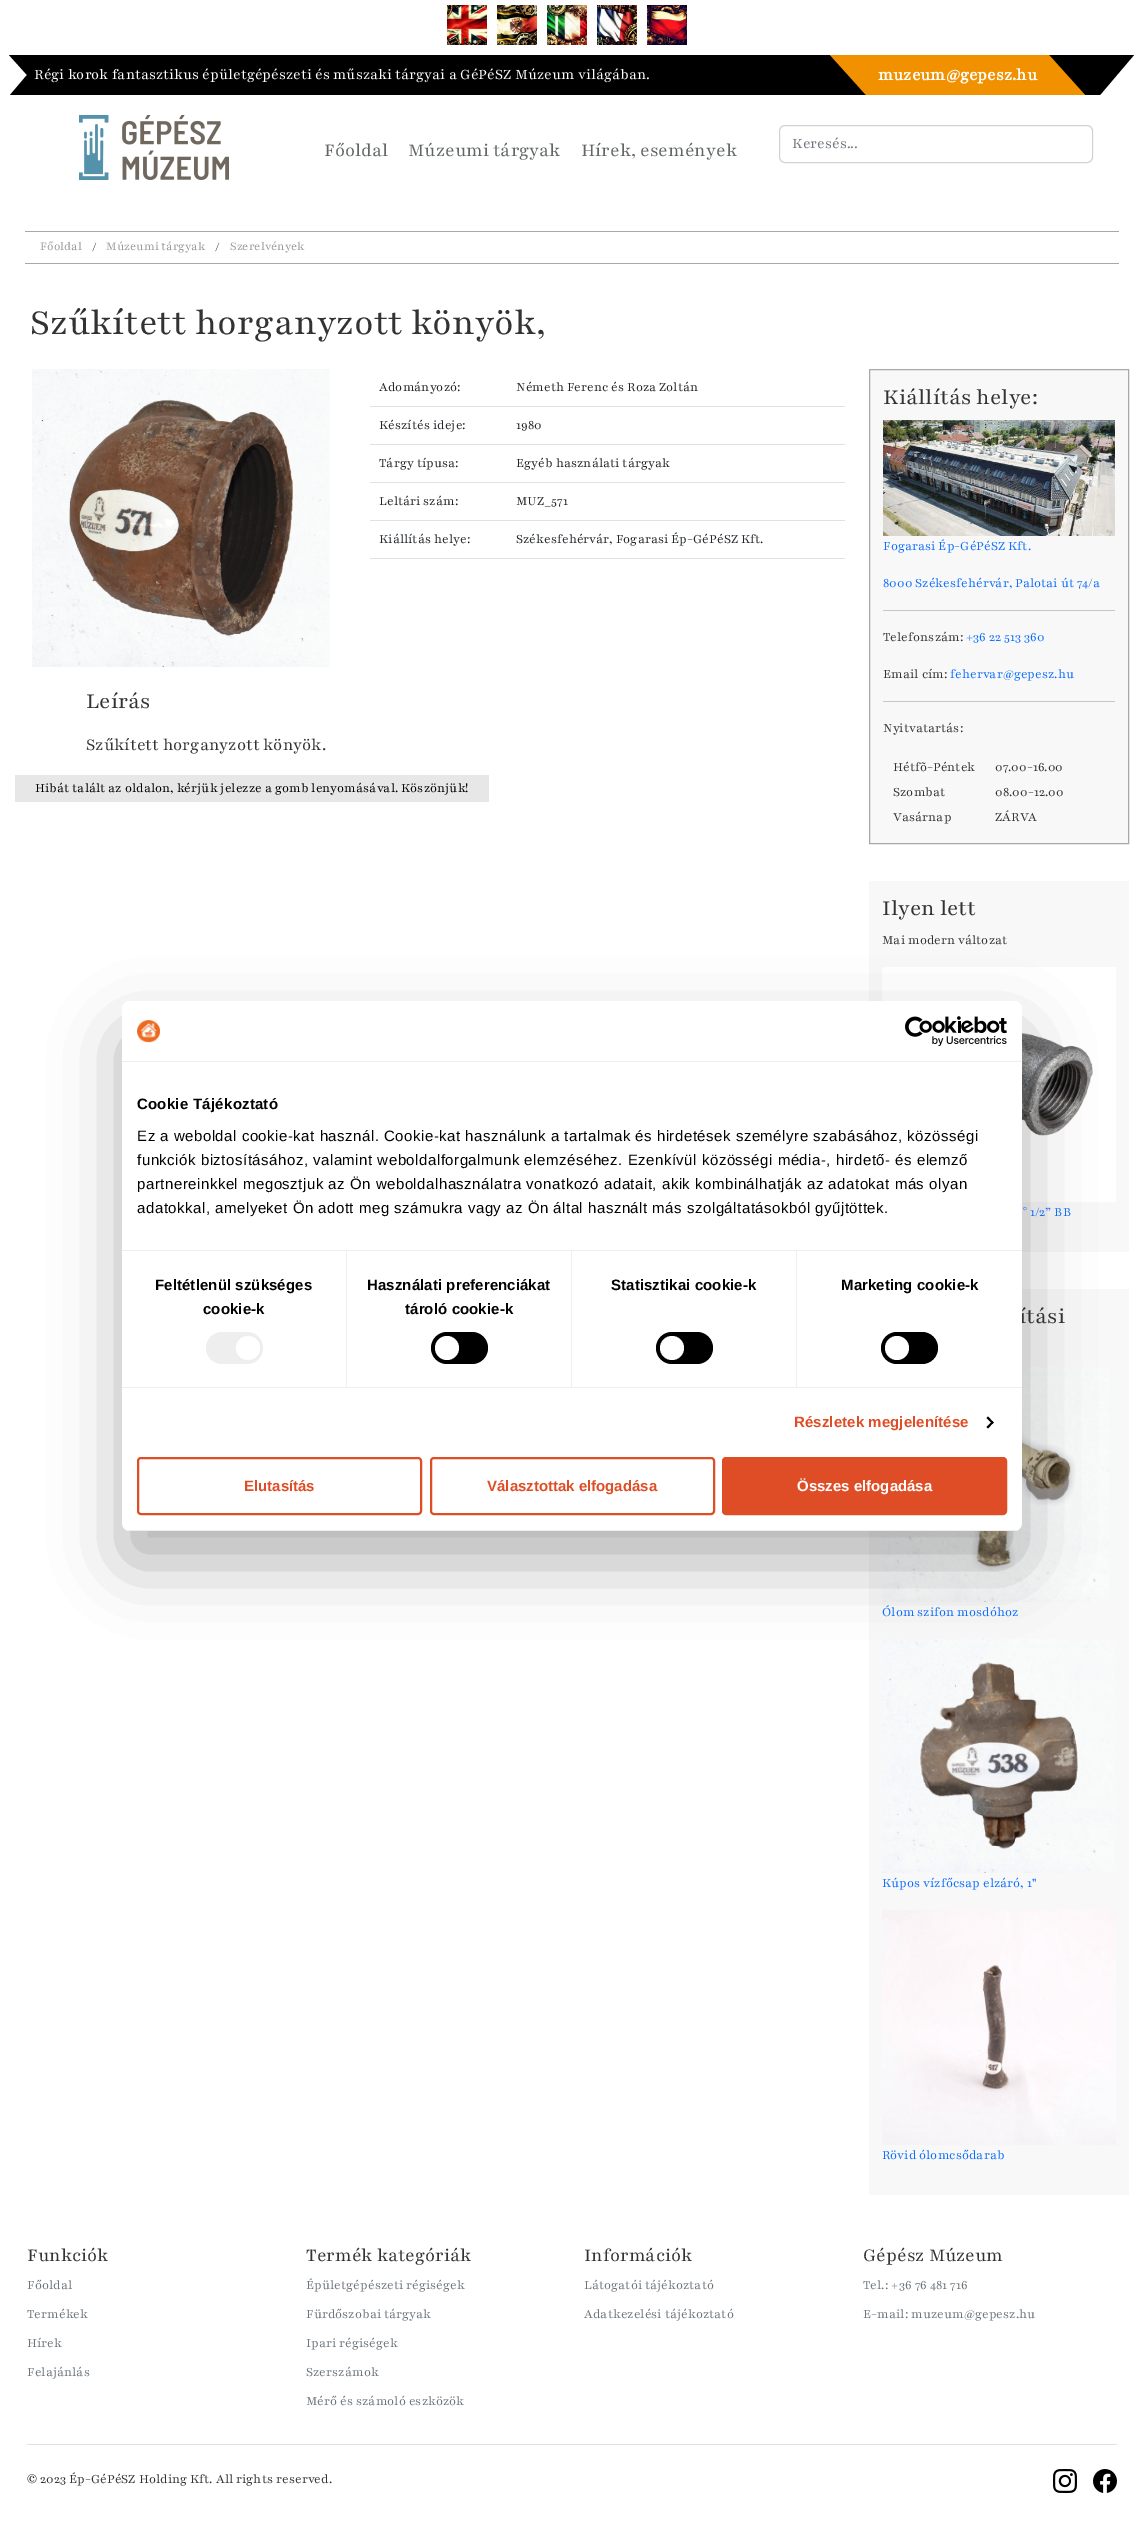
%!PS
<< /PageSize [1144 2532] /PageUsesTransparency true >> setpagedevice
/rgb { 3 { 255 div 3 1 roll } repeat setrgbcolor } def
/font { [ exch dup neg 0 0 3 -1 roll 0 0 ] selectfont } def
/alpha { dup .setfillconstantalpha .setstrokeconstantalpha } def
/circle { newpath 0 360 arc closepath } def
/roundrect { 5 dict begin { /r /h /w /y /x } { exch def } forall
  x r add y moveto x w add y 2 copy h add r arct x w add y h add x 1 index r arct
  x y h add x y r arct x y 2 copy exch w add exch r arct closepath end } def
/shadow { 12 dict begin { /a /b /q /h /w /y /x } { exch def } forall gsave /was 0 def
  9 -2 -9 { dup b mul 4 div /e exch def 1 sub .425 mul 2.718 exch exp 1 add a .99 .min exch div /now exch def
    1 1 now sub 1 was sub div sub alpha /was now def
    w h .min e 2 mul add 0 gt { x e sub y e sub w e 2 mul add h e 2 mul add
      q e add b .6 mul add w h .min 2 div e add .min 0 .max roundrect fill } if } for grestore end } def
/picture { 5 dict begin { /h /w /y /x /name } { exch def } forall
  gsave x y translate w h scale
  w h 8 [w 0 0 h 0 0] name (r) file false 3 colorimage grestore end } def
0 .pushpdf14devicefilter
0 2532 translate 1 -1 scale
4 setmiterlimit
255 255 255 rgb
0 0 1144 2532 rectfill
(img/1.rgb) 447 5 40 40 picture
(img/2.rgb) 497 5 40 40 picture
(img/3.rgb) 547 5 40 40 picture
(img/4.rgb) 597 5 40 40 picture
(img/5.rgb) 647 5 40 40 picture
0 0 0 rgb
44 55 moveto 1134 55 lineto 1100 95 lineto 10 95 lineto closepath fill
9 55 moveto 632 55 lineto 668 95 lineto 45 95 lineto closepath fill
241 145 0 rgb
830 55 moveto 1049 55 lineto 1085 95 lineto 866 95 lineto closepath fill
(img/6.rgb) 79 115 150 65 picture
206 212 218 rgb
779.5 125.5 313 37 5.5 roundrect stroke
168 168 168 rgb
25 231 1094 1 rectfill
25 263 1094 1 rectfill
(img/7.rgb) 32 369 298 298 picture
[
  [370 406 475 1 222 226 230]
  [370 444 475 1 222 226 230]
  [370 482 475 1 222 226 230]
  [370 520 475 1 222 226 230]
  [370 558 475 1 222 226 230]
  [15 775 474 27 231 231 231]
] { aload pop rgb rectfill } forall
248 248 248 rgb
869.5 369.5 moveto 1128.5 369.5 lineto 1128.5 843.5 lineto 869.5 843.5 lineto closepath gsave fill grestore
168 168 168 rgb
stroke
(img/8.rgb) 883 420 232 116 picture
[
  [883 610 232 1 199 199 199]
  [883 701 232 1 199 199 199]
  [869 881 260 371 248 248 248]
] { aload pop rgb rectfill } forall
(img/9.rgb) 882 967 234 235 picture
869 1289 260 906 rectfill
(img/10.rgb) 882 1367 227 235 picture
(img/11.rgb) 882 1639 233 234 picture
(img/12.rgb) 882 1910 234 235 picture
222 226 230 rgb
27 2444 1090 1 rectfill
(img/13.rgb) 1053 2469 24 24 picture
(img/14.rgb) 1093 2469 24 24 picture
0 0 0 rgb
122 1033 900 530 8 34 0.3 shadow
/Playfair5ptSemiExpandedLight-Light 16 font
255 255 255 rgb
34 79 moveto (Régi korok fantasztikus épületgépészeti és műszaki tárgyai a GéPéSZ Múzeum világában.) show
/Playfair5ptSemiExpandedLight-Bold 18 font
878 80 moveto (muzeum@gepesz.hu) show
/Playfair5ptSemiExpandedLight-Light 20 font
97 101 102 rgb
[
  [(Főoldal) 324 156]
  [(Múzeumi tárgyak) 408 156]
  [(Hírek, események) 581 156]
] { aload pop moveto show } forall
/Playfair5ptSemiExpandedLight-Light 16 font
108 117 125 rgb
792 148 moveto (Keresés...) show
/Playfair5ptSemiExpandedLight-Light 13 font
153 153 153 rgb
40 250 moveto (Főoldal) show
/Playfair5ptSemiExpandedLight-Light 14 font
51 51 51 rgb
92 251 moveto (/) show
/Playfair5ptSemiExpandedLight-Light 13 font
153 153 153 rgb
106 250 moveto (Múzeumi tárgyak) show
/Playfair5ptSemiExpandedLight-Light 14 font
51 51 51 rgb
215 251 moveto (/) show
/Playfair5ptSemiExpandedLight-Light 13 font
153 153 153 rgb
230 250 moveto (Szerelvények) show
/Playfair5ptSemiExpandedLight-Light 39.2 font
51 51 51 rgb
30 334 moveto (Szűkített horganyzott könyök,) show
/Playfair5ptSemiExpandedLight-Light 14 font
33 37 41 rgb
[
  [(Adományozó:) 379 391]
  [(Németh Ferenc és Roza Zoltán) 516 391]
  [(Készítés ideje:) 379 429]
  [(1980) 516 429]
  [(Tárgy típusa:) 379 467]
  [(Egyéb használati tárgyak) 516 467]
  [(Leltári szám:) 379 505]
  [(MUZ_571) 516 505]
  [(Kiállítás helye:) 379 543]
  [(Székesfehérvár, Fogarasi Ép-GéPéSZ Kft.) 516 543]
] { aload pop moveto show } forall
/Playfair5ptSemiExpandedLight-Light 23.75 font
51 51 51 rgb
86 708 moveto (Leírás) show
/Playfair5ptSemiExpandedLight-Light 18.25 font
86 750 moveto (Szűkített horganyzott könyök.) show
/Playfair5ptSemiExpandedLight-Light 14 font
0 0 0 rgb
35 792 moveto (Hibát talált az oldalon, kérjük jelezze a gomb lenyomásával. Köszönjük!) show
/Playfair5ptSemiExpandedLight-Light 23.75 font
51 51 51 rgb
883 404 moveto (Kiállítás helye:) show
/Playfair5ptSemiExpandedLight-Light 14 font
13 110 253 rgb
883 550 moveto (Fogarasi Ép-GéPéSZ Kft.) show
883 587 moveto (8000 Székesfehérvár, Palotai út 74/a) show
51 51 51 rgb
883 641 moveto (Telefonszám:) show
13 110 253 rgb
966 641 moveto (+36 22 513 360) show
51 51 51 rgb
883 678 moveto (Email cím:) show
13 110 253 rgb
950 678 moveto (fehervar@gepesz.hu) show
51 51 51 rgb
[
  [(Nyitvatartás:) 883 732]
  [(Hétfõ-Péntek) 893 771]
  [(07.00-16.00) 995 771]
  [(Szombat) 893 796]
  [(08.00-12.00) 995 796]
  [(Vasárnap) 893 821]
  [(ZÁRVA) 995 821]
] { aload pop moveto show } forall
/Playfair5ptSemiExpandedLight-Light 23.75 font
882 915 moveto (Ilyen lett) show
/Playfair5ptSemiExpandedLight-Light 14 font
882 944 moveto (Mai modern változat) show
13 110 253 rgb
1023 1216 moveto (° 1/2” BB) show
/Playfair5ptSemiExpandedLight-Light 23.75 font
51 51 51 rgb
1019 1323 moveto (ítási) show
/Playfair5ptSemiExpandedLight-Light 14 font
13 110 253 rgb
[
  [(Ólom szifon mosdóhoz) 882 1616]
  [(Kúpos vízfőcsap elzáró, 1") 882 1887]
  [(Rövid ólomcsődarab) 882 2159]
] { aload pop moveto show } forall
/Playfair5ptSemiExpandedLight-Light 20 font
51 51 51 rgb
27 2261 moveto (Funkciók) show
/Playfair5ptSemiExpandedLight-Light 14 font
108 117 125 rgb
[
  [(Főoldal) 27 2289]
  [(Termékek) 27 2318]
  [(Hírek) 27 2347]
  [(Felajánlás) 27 2376]
] { aload pop moveto show } forall
/Playfair5ptSemiExpandedLight-Light 20 font
51 51 51 rgb
306 2261 moveto (Termék kategóriák) show
/Playfair5ptSemiExpandedLight-Light 14 font
108 117 125 rgb
[
  [(Épületgépészeti régiségek) 306 2289]
  [(Fürdőszobai tárgyak) 306 2318]
  [(Ipari régiségek) 306 2347]
  [(Szerszámok) 306 2376]
  [(Mérő és számoló eszközök) 306 2405]
] { aload pop moveto show } forall
/Playfair5ptSemiExpandedLight-Light 20 font
51 51 51 rgb
584 2261 moveto (Információk) show
/Playfair5ptSemiExpandedLight-Light 14 font
108 117 125 rgb
584 2289 moveto (Látogatói tájékoztató) show
584 2318 moveto (Adatkezelési tájékoztató) show
/Playfair5ptSemiExpandedLight-Light 20 font
51 51 51 rgb
863 2261 moveto (Gépész Múzeum) show
/Playfair5ptSemiExpandedLight-Light 14 font
108 117 125 rgb
863 2289 moveto (Tel.: +36 76 481 716) show
863 2318 moveto (E-mail: muzeum@gepesz.hu) show
51 51 51 rgb
27 2483 moveto (© 2023 Ép-GéPéSZ Holding Kft. All rights reserved.) show
255 255 255 rgb
122 1001 900 530 8 roundrect fill
238 238 238 rgb
122 1061 900 1 rectfill
(img/15.rgb) 137 1020 23 23 picture
(img/16.rgb) 905 1016 102 30 picture
122 1250 900 1 rectfill
/LiberationSans-Bold 15 font
0 0 0 rgb
137 1109 moveto 0.25 0 (Cookie Tájékoztató) ashow
/LiberationSans-Regular 15 font
137 1141 moveto 0.5 0 (Ez a weboldal cookie-kat használ. Cookie-kat használunk a tartalmak és hirdetések személyre szabásához, közösségi) ashow
137 1165 moveto 0.5 0 (funkciók biztosításához, valamint weboldalforgalmunk elemzéséhez. Ezenkívül közösségi média-, hirdető- és elemző) ashow
137 1189 moveto 0.5 0 (partnereinkkel megosztjuk az Ön weboldalhasználatra vonatkozó adatait, akik kombinálhatják az adatokat más olyan) ashow
137 1213 moveto 0.5 0 (adatokkal, amelyeket Ön adott meg számukra vagy az Ön által használt más szolgáltatásokból gyűjtöttek.) ashow
238 238 238 rgb
122 1387 900 1 rectfill
346 1251 1 136 rectfill
/LiberationSans-Bold 15 font
0 0 0 rgb
155 1290 moveto 0.1 0 (Feltétlenül szükséges) ashow
203 1314 moveto 0.1 0 (cookie-k) ashow
238 238 238 rgb
206 1332 57 32 16 roundrect fill
255 255 255 rgb
248 1348 12 circle fill
238 238 238 rgb
571 1251 1 136 rectfill
0 0 0 rgb
367 1290 moveto 0.1 0 (Használati preferenciákat) ashow
405 1314 moveto 0.1 0 (tároló cookie-k) ashow
431 1332 57 32 16 roundrect fill
255 255 255 rgb
447 1348 12 circle fill
238 238 238 rgb
796 1251 1 136 rectfill
0 0 0 rgb
611 1290 moveto 0.1 0 (Statisztikai cookie-k) ashow
656 1332 57 32 16 roundrect fill
255 255 255 rgb
672 1348 12 circle fill
0 0 0 rgb
841 1290 moveto 0.1 0 (Marketing cookie-k) ashow
881 1332 57 32 16 roundrect fill
255 255 255 rgb
897 1348 12 circle fill
223 77 38 rgb
794 1427 moveto 0.1 0 (Részletek megjelenítése) ashow
0 0 0 rgb
988 1416.5 moveto 993.5 1422.5 lineto 992.5 1424 lineto 986.5 1418 lineto closepath fill
992.5 1421 moveto 993.5 1422.5 lineto 988 1428.5 lineto 986.5 1427 lineto closepath fill
gsave
122 1001 900 530 8 roundrect clip newpath
238 238 238 rgb
122 1530 900 1 rectfill
grestore
223 77 38 rgb
2 setlinewidth
138 1458 283 56 3 roundrect stroke
244 1491 moveto (Elutasítás) show
431 1458 283 56 3 roundrect stroke
487 1491 moveto (Választottak elfogadása) show
723 1458 283 56 3 roundrect gsave fill grestore
stroke
255 255 255 rgb
797 1491 moveto (Összes elfogadása) show
.poppdf14devicefilter showpage
